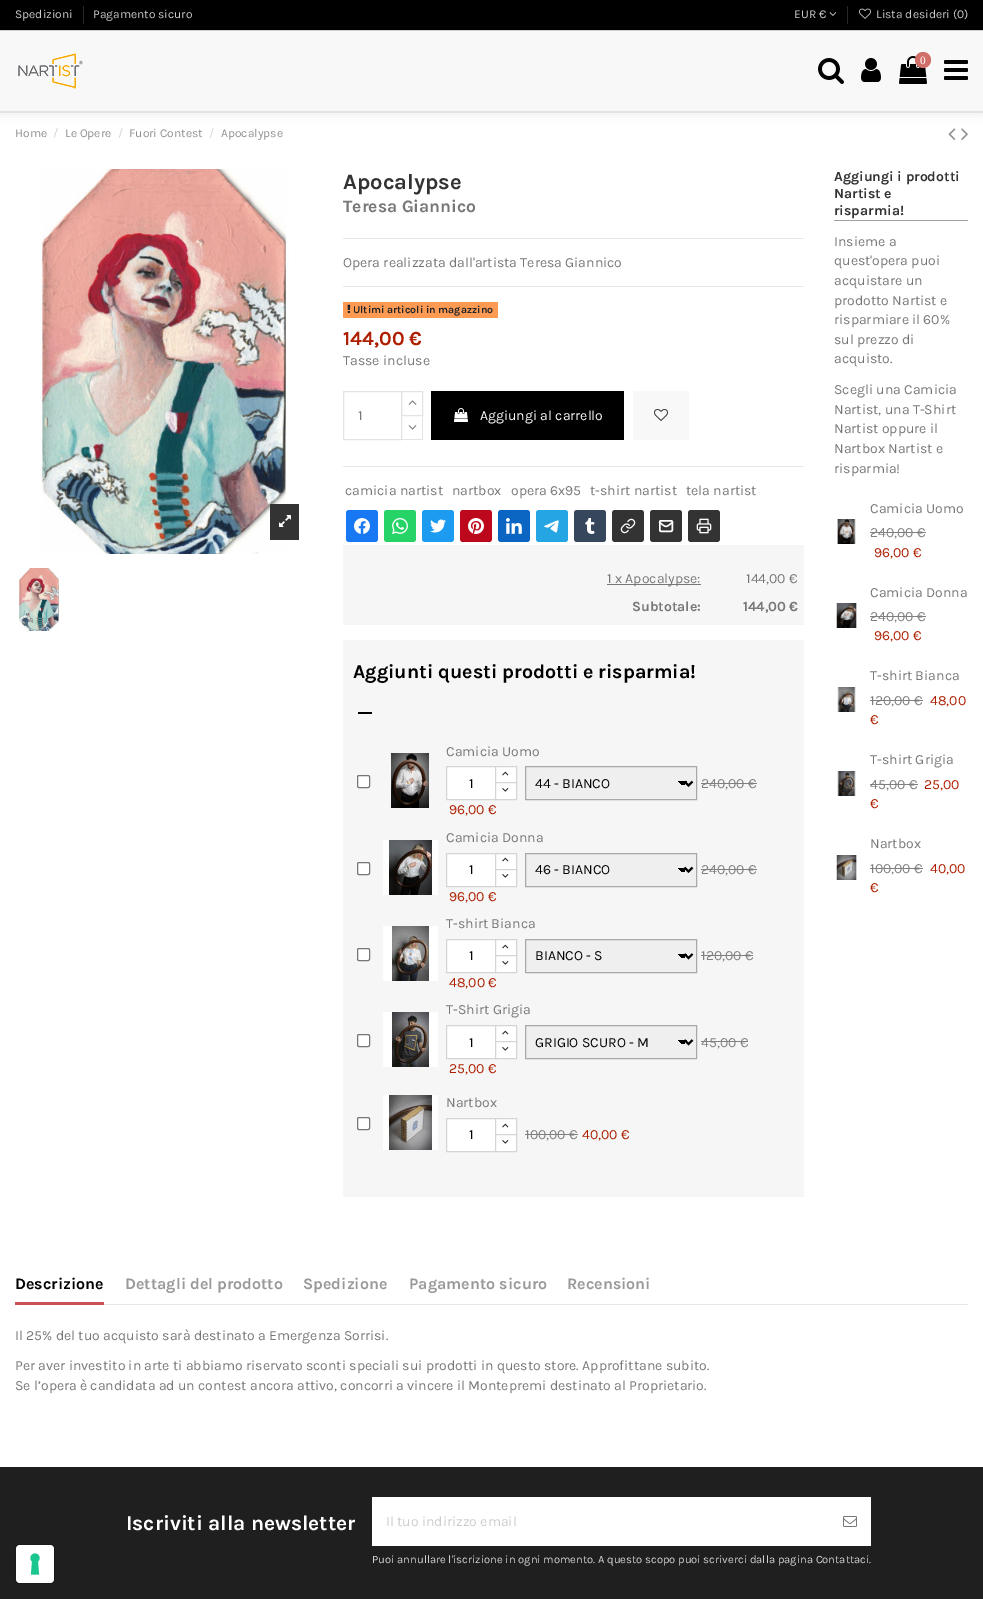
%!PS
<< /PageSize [983 1599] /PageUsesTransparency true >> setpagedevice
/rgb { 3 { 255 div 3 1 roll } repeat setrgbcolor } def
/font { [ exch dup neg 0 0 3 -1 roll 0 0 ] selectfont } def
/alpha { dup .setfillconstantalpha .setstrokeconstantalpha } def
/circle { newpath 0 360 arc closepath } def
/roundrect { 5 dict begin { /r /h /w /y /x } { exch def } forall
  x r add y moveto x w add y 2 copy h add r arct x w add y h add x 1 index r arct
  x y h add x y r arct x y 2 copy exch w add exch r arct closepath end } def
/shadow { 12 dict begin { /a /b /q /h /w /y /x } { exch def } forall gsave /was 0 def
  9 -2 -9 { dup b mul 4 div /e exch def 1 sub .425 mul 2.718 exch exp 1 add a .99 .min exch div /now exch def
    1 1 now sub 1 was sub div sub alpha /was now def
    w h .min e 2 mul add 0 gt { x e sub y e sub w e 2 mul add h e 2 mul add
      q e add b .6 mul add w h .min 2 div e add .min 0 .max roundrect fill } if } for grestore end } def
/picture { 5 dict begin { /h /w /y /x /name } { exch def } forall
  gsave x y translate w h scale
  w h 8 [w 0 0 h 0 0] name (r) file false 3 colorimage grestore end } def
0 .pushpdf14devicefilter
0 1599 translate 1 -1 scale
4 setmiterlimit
255 255 255 rgb
0 0 983 1599 rectfill
(img/8.rgb) 948 128 8 12 picture
(img/9.rgb) 961 128 7 12 picture
61 57 57 rgb
0 -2 983 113 0 5.5 0.17 shadow
[
  [0 31 983 80 248 248 248]
  [0 111 983 2 227 227 227]
  [0 0 983 30 0 0 0]
  [0 30 983 1 207 207 207]
  [83 6 1 18 40 40 40]
] { aload pop rgb rectfill } forall
(img/1.rgb) 829 12 8 4 picture
847 6 1 18 rectfill
(img/2.rgb) 859 8 12 11 picture
(img/3.rgb) 18 53 65 36 picture
(img/4.rgb) 818 58 26 26 picture
(img/5.rgb) 861 58 20 24 picture
(img/6.rgb) 899 56 28 28 picture
208 110 106 rgb
923 60 8 circle fill
(img/7.rgb) 944 60 24 20 picture
(img/10.rgb) 40 169 249 385 picture
51 51 51 rgb
270 504 29 36 rectfill
(img/11.rgb) 279 515 12 12 picture
(img/12.rgb) 19 568 40 63 picture
[
  [343 238 461 1 231 231 231]
  [343 286 461 1 231 231 231]
  [343 302 155 16 255 154 82]
] { aload pop rgb rectfill } forall
(img/13.rgb) 347 304 4 9 picture
227 227 227 rgb
343.5 391.5 58 48 rectstroke
401.5 391.5 21 24 rectstroke
(img/14.rgb) 408 400 9 5 picture
255 255 255 rgb
401 416 1 23 rectfill
227 227 227 rgb
423 416 moveto 423 440 lineto 422 439 lineto 422 417 lineto closepath fill
401 439 22 1 rectfill
401 440 moveto 401 416 lineto 402 417 lineto 402 439 lineto closepath fill
(img/15.rgb) 408 425 9 5 picture
0 0 0 rgb
431 391 193 49 rectfill
(img/16.rgb) 454 408 14 14 picture
248 248 248 rgb
633 391 56 49 rectfill
(img/17.rgb) 654 409 14 12 picture
231 231 231 rgb
343 466 461 1 rectfill
24 119 242 rgb
346 510 32 32 3 roundrect fill
(img/18.rgb) 354 518 16 16 picture
37 211 102 rgb
384 510 32 32 3 roundrect fill
(img/19.rgb) 392 518 16 16 picture
29 155 240 rgb
422 510 32 32 3 roundrect fill
(img/20.rgb) 430 519 16 14 picture
189 8 28 rgb
460 510 32 32 3 roundrect fill
(img/21.rgb) 468 518 16 16 picture
10 102 194 rgb
498 510 32 32 3 roundrect fill
(img/22.rgb) 506 518 16 16 picture
38 165 228 rgb
536 510 32 32 3 roundrect fill
(img/23.rgb) 544 520 15 13 picture
54 70 93 rgb
574 510 32 32 3 roundrect fill
(img/24.rgb) 585 518 10 16 picture
51 51 51 rgb
612 510 32 32 3 roundrect fill
(img/25.rgb) 620 518 16 16 picture
650 510 32 32 3 roundrect fill
255 255 255 rgb
1.5 setlinewidth
659.75 520.75 12.5 10.5 1.25 roundrect stroke
1.3 setlinewidth
1 setlinecap
1 setlinejoin
672.5 522.5 moveto 664.5 528 667.5 528 659.5 522.5 curveto stroke
51 51 51 rgb
688 510 32 32 3 roundrect fill
(img/26.rgb) 696 518 16 16 picture
[
  [343 545 461 80 246 246 246]
  [607 584 94 1 119 119 119]
  [343 640 461 557 246 246 246]
  [358 712 14 2 0 0 0]
] { aload pop rgb rectfill } forall
255 255 255 rgb
357.5 775.5 12 12 1.5 roundrect gsave fill grestore
118 118 118 rgb
1 setlinewidth
0 setlinecap
0 setlinejoin
stroke
(img/27.rgb) 391 753 38 55 picture
255 255 255 rgb
446.5 766.5 moveto 495.5 766.5 lineto 495.5 799.5 lineto 446.5 799.5 lineto closepath gsave fill grestore
214 212 212 rgb
stroke
255 255 255 rgb
496 767 20 15 rectfill
214 212 212 rgb
495.5 766.5 21 17 rectstroke
(img/28.rgb) 502 771 7 5 picture
255 255 255 rgb
495.5 782.5 moveto 516.5 782.5 lineto 516.5 799.5 lineto 495.5 799.5 lineto closepath gsave fill grestore
214 212 212 rgb
stroke
(img/29.rgb) 502 788 7 4 picture
239 239 239 rgb
526 767 170 32 rectfill
gsave 683 781 moveto 688 781 lineto 688 785 lineto 683 785 lineto closepath clip newpath
<< /ShadingType 2 /ColorSpace /DeviceRGB /Coords [683 781 688 786] /Extend [true true] /Function << /FunctionType 3 /Domain [0 1] /Functions [<< /FunctionType 2 /Domain [0 1] /C0 [0 0 0] /C1 [0 0 0] /N 1 >> << /FunctionType 2 /Domain [0 1] /C0 [0.937 0.937 0.937] /C1 [0.937 0.937 0.937] /N 1 >>] /Bounds [0.5] /Encode [0 1 0 1] >> >> shfill grestore
gsave 678 781 moveto 683 781 lineto 683 785 lineto 678 785 lineto closepath clip newpath
<< /ShadingType 2 /ColorSpace /DeviceRGB /Coords [678 786 683 781] /Extend [true true] /Function << /FunctionType 3 /Domain [0 1] /Functions [<< /FunctionType 2 /Domain [0 1] /C0 [0.937 0.937 0.937] /C1 [0.937 0.937 0.937] /N 1 >> << /FunctionType 2 /Domain [0 1] /C0 [0 0 0] /C1 [0 0 0] /N 1 >>] /Bounds [0.5] /Encode [0 1 0 1] >> >> shfill grestore
169 169 169 rgb
525.5 766.5 171 33 rectstroke
0 0 0 rgb
2 setlinewidth
684.5 781.5 moveto 688.5 785.5 lineto 692.5 781.5 lineto stroke
128 128 128 rgb
701 783 56 1 rectfill
255 255 255 rgb
357.5 862.5 12 12 1.5 roundrect gsave fill grestore
118 118 118 rgb
1 setlinewidth
stroke
(img/30.rgb) 383 840 55 55 picture
255 255 255 rgb
446.5 853.5 moveto 495.5 853.5 lineto 495.5 886.5 lineto 446.5 886.5 lineto closepath gsave fill grestore
214 212 212 rgb
stroke
255 255 255 rgb
496 854 20 15 rectfill
214 212 212 rgb
495.5 853.5 21 17 rectstroke
(img/28.rgb) 502 857 7 5 picture
255 255 255 rgb
495.5 869.5 moveto 516.5 869.5 lineto 516.5 886.5 lineto 495.5 886.5 lineto closepath gsave fill grestore
214 212 212 rgb
stroke
(img/29.rgb) 502 874 7 4 picture
239 239 239 rgb
526 854 170 32 rectfill
gsave 683 868 moveto 688 868 lineto 688 872 lineto 683 872 lineto closepath clip newpath
<< /ShadingType 2 /ColorSpace /DeviceRGB /Coords [683 868 688 873] /Extend [true true] /Function << /FunctionType 3 /Domain [0 1] /Functions [<< /FunctionType 2 /Domain [0 1] /C0 [0 0 0] /C1 [0 0 0] /N 1 >> << /FunctionType 2 /Domain [0 1] /C0 [0.937 0.937 0.937] /C1 [0.937 0.937 0.937] /N 1 >>] /Bounds [0.5] /Encode [0 1 0 1] >> >> shfill grestore
gsave 678 868 moveto 683 868 lineto 683 872 lineto 678 872 lineto closepath clip newpath
<< /ShadingType 2 /ColorSpace /DeviceRGB /Coords [678 873 683 868] /Extend [true true] /Function << /FunctionType 3 /Domain [0 1] /Functions [<< /FunctionType 2 /Domain [0 1] /C0 [0.937 0.937 0.937] /C1 [0.937 0.937 0.937] /N 1 >> << /FunctionType 2 /Domain [0 1] /C0 [0 0 0] /C1 [0 0 0] /N 1 >>] /Bounds [0.5] /Encode [0 1 0 1] >> >> shfill grestore
169 169 169 rgb
525.5 853.5 171 33 rectstroke
0 0 0 rgb
2 setlinewidth
684.5 867.5 moveto 688.5 871.5 lineto 692.5 867.5 lineto stroke
128 128 128 rgb
701 869 56 1 rectfill
255 255 255 rgb
357.5 948.5 12 12 1.5 roundrect gsave fill grestore
118 118 118 rgb
1 setlinewidth
stroke
(img/31.rgb) 383 926 55 55 picture
255 255 255 rgb
446.5 939.5 moveto 495.5 939.5 lineto 495.5 972.5 lineto 446.5 972.5 lineto closepath gsave fill grestore
214 212 212 rgb
stroke
255 255 255 rgb
496 940 20 15 rectfill
214 212 212 rgb
495.5 939.5 21 17 rectstroke
(img/28.rgb) 502 944 7 5 picture
255 255 255 rgb
495.5 955.5 moveto 516.5 955.5 lineto 516.5 972.5 lineto 495.5 972.5 lineto closepath gsave fill grestore
214 212 212 rgb
stroke
(img/29.rgb) 502 961 7 4 picture
239 239 239 rgb
526 940 170 32 rectfill
gsave 683 954 moveto 688 954 lineto 688 958 lineto 683 958 lineto closepath clip newpath
<< /ShadingType 2 /ColorSpace /DeviceRGB /Coords [683 954 688 959] /Extend [true true] /Function << /FunctionType 3 /Domain [0 1] /Functions [<< /FunctionType 2 /Domain [0 1] /C0 [0 0 0] /C1 [0 0 0] /N 1 >> << /FunctionType 2 /Domain [0 1] /C0 [0.937 0.937 0.937] /C1 [0.937 0.937 0.937] /N 1 >>] /Bounds [0.5] /Encode [0 1 0 1] >> >> shfill grestore
gsave 678 954 moveto 683 954 lineto 683 958 lineto 678 958 lineto closepath clip newpath
<< /ShadingType 2 /ColorSpace /DeviceRGB /Coords [678 959 683 954] /Extend [true true] /Function << /FunctionType 3 /Domain [0 1] /Functions [<< /FunctionType 2 /Domain [0 1] /C0 [0.937 0.937 0.937] /C1 [0.937 0.937 0.937] /N 1 >> << /FunctionType 2 /Domain [0 1] /C0 [0 0 0] /C1 [0 0 0] /N 1 >>] /Bounds [0.5] /Encode [0 1 0 1] >> >> shfill grestore
169 169 169 rgb
525.5 939.5 171 33 rectstroke
0 0 0 rgb
2 setlinewidth
684.5 954 moveto 688.5 958 lineto 692.5 954 lineto stroke
128 128 128 rgb
701 955 52 1 rectfill
255 255 255 rgb
357.5 1034.5 12 12 1.5 roundrect gsave fill grestore
118 118 118 rgb
1 setlinewidth
stroke
(img/32.rgb) 383 1012 55 55 picture
255 255 255 rgb
446.5 1025.5 moveto 495.5 1025.5 lineto 495.5 1058.5 lineto 446.5 1058.5 lineto closepath gsave fill grestore
214 212 212 rgb
stroke
255 255 255 rgb
496 1026 20 15 rectfill
214 212 212 rgb
495.5 1025.5 21 17 rectstroke
(img/28.rgb) 502 1030 7 5 picture
255 255 255 rgb
495.5 1041.5 moveto 516.5 1041.5 lineto 516.5 1058.5 lineto 495.5 1058.5 lineto closepath gsave fill grestore
214 212 212 rgb
stroke
(img/29.rgb) 502 1047 7 4 picture
239 239 239 rgb
526 1026 170 32 rectfill
gsave 683 1040 moveto 688 1040 lineto 688 1044 lineto 683 1044 lineto closepath clip newpath
<< /ShadingType 2 /ColorSpace /DeviceRGB /Coords [683 1040 688 1045] /Extend [true true] /Function << /FunctionType 3 /Domain [0 1] /Functions [<< /FunctionType 2 /Domain [0 1] /C0 [0 0 0] /C1 [0 0 0] /N 1 >> << /FunctionType 2 /Domain [0 1] /C0 [0.937 0.937 0.937] /C1 [0.937 0.937 0.937] /N 1 >>] /Bounds [0.5] /Encode [0 1 0 1] >> >> shfill grestore
gsave 678 1040 moveto 683 1040 lineto 683 1044 lineto 678 1044 lineto closepath clip newpath
<< /ShadingType 2 /ColorSpace /DeviceRGB /Coords [678 1045 683 1040] /Extend [true true] /Function << /FunctionType 3 /Domain [0 1] /Functions [<< /FunctionType 2 /Domain [0 1] /C0 [0.937 0.937 0.937] /C1 [0.937 0.937 0.937] /N 1 >> << /FunctionType 2 /Domain [0 1] /C0 [0 0 0] /C1 [0 0 0] /N 1 >>] /Bounds [0.5] /Encode [0 1 0 1] >> >> shfill grestore
169 169 169 rgb
525.5 1025.5 171 33 rectstroke
0 0 0 rgb
2 setlinewidth
684.5 1040 moveto 688.5 1044 lineto 692.5 1040 lineto stroke
128 128 128 rgb
701 1041 47 1 rectfill
255 255 255 rgb
357.5 1117.5 12 12 1.5 roundrect gsave fill grestore
118 118 118 rgb
1 setlinewidth
stroke
(img/33.rgb) 383 1095 55 55 picture
255 255 255 rgb
446.5 1118.5 moveto 495.5 1118.5 lineto 495.5 1151.5 lineto 446.5 1151.5 lineto closepath gsave fill grestore
214 212 212 rgb
stroke
255 255 255 rgb
496 1119 20 15 rectfill
214 212 212 rgb
495.5 1118.5 21 17 rectstroke
(img/28.rgb) 502 1123 7 5 picture
255 255 255 rgb
495.5 1134.5 moveto 516.5 1134.5 lineto 516.5 1151.5 lineto 495.5 1151.5 lineto closepath gsave fill grestore
214 212 212 rgb
stroke
(img/29.rgb) 502 1140 7 4 picture
128 128 128 rgb
525 1134 53 1 rectfill
161 161 161 rgb
834 220 134 1 rectfill
(img/34.rgb) 837 519 19 25 picture
128 128 128 rgb
870 532 56 1 rectfill
(img/35.rgb) 836 603 21 25 picture
870 616 56 1 rectfill
(img/36.rgb) 837 687 19 25 picture
870 700 53 1 rectfill
(img/37.rgb) 837 771 19 25 picture
870 784 48 1 rectfill
(img/38.rgb) 836 855 21 25 picture
[
  [870 868 53 1 128 128 128]
  [104 1304 864 1 231 231 231]
  [15 1302 89 3 202 80 88]
  [0 1467 983 132 31 31 31]
  [372 1497 499 49 255 255 255]
] { aload pop rgb rectfill } forall
(img/39.rgb) 843 1516 14 11 picture
26 26 26 rgb
15.5 1544.5 39 39 4.5 roundrect stroke
255 255 255 rgb
16 1545 38 38 4 roundrect fill
(img/40.rgb) 30 1553 10 22 picture
/Karla-Regular 12 font
203 203 203 rgb
[
  [(Spedizioni) 15 18]
  [(Pagamento sicuro) 93 18]
  [(EUR €) 794 18]
  [(Lista desideri \(0\)) 876 18]
] { aload pop moveto show } forall
/LiberationSerif-Regular 11.2 font
255 255 255 rgb
920 64 moveto (0) show
/Karla-Regular 12 font
143 143 143 rgb
15 137 moveto (Home) show
210 210 210 rgb
53 137 moveto (/) show
143 143 143 rgb
65 137 moveto (Le Opere) show
210 210 210 rgb
118 137 moveto (/) show
143 143 143 rgb
129 137 moveto (Fuori Contest) show
210 210 210 rgb
209 137 moveto (/) show
143 143 143 rgb
221 137 moveto (Apocalypse) show
/Karla-Bold 22 font
51 51 51 rgb
343 189 moveto (Apocalypse) show
/Karla-Bold 17.5 font
119 119 119 rgb
343 212 moveto (Teresa Giannico) show
/Karla-Regular 14 font
343 267 moveto (Opera realizzata dall'artista Teresa Giannico) show
/Karla-Bold 10.5 font
33 37 41 rgb
353 313 moveto (Ultimi articoli in magazzino) show
/Karla-Bold 20 font
173 31 0 rgb
343 345 moveto (144,00 €) show
/Karla-Regular 14 font
119 119 119 rgb
343 365 moveto (Tasse incluse) show
358 420 moveto (1) show
255 255 255 rgb
480 420 moveto (Aggiungi al carrello) show
119 119 119 rgb
[
  [(camicia nartist) 345 495]
  [(nartbox) 452 495]
  [(opera 6x95) 511 495]
  [(t-shirt nartist) 590 495]
  [(tela nartist) 686 495]
  [(1 x Apocalypse:) 607 583]
  [(144,00 €) 746 583]
] { aload pop moveto show } forall
/Karla-Bold 14 font
632 611 moveto (Subtotale:) show
743 611 moveto (144,00 €) show
/Karla-Bold 19.6 font
0 0 0 rgb
353 678 moveto (Aggiunti questi prodotti e risparmia!) show
/Karla-Regular 14 font
119 119 119 rgb
446 756 moveto (Camicia Uomo) show
0 0 0 rgb
469 788 moveto (1) show
535 788 moveto (44 - BIANCO) show
128 128 128 rgb
701 788 moveto (240,00 €) show
173 31 0 rgb
449 814 moveto (96,00 €) show
119 119 119 rgb
446 842 moveto (Camicia Donna) show
0 0 0 rgb
469 874 moveto (1) show
535 874 moveto (46 - BIANCO) show
128 128 128 rgb
701 874 moveto (240,00 €) show
173 31 0 rgb
449 901 moveto (96,00 €) show
119 119 119 rgb
446 928 moveto (T-shirt Bianca) show
0 0 0 rgb
469 960 moveto (1) show
535 960 moveto (BIANCO - S) show
128 128 128 rgb
701 960 moveto (120,00 €) show
173 31 0 rgb
449 987 moveto (48,00 €) show
119 119 119 rgb
446 1014 moveto (T-Shirt Grigia) show
0 0 0 rgb
469 1047 moveto (1) show
535 1047 moveto (GRIGIO SCURO - M) show
128 128 128 rgb
701 1047 moveto (45,00 €) show
173 31 0 rgb
449 1073 moveto (25,00 €) show
119 119 119 rgb
446 1107 moveto (Nartbox) show
0 0 0 rgb
469 1139 moveto (1) show
128 128 128 rgb
525 1139 moveto (100,00 €) show
173 31 0 rgb
582 1139 moveto (40,00 €) show
/Karla-Bold 14 font
51 51 51 rgb
[
  [(Aggiungi i prodotti) 834 181]
  [(Nartist e) 834 198]
  [(risparmia!) 834 215]
] { aload pop moveto show } forall
/Karla-Regular 14 font
119 119 119 rgb
[
  [(Insieme a) 834 246]
  [(quest'opera puoi) 834 265]
  [(acquistare un) 834 285]
  [(prodotto Nartist e) 834 305]
  [(risparmiare il 60%) 834 324]
  [(sul prezzo di) 834 344]
  [(acquisto.) 834 363]
  [(Scegli una Camicia) 834 394]
  [(Nartist, una T-Shirt) 834 414]
  [(Nartist oppure il) 834 433]
  [(Nartbox Nartist e) 834 453]
  [(risparmia!) 834 473]
  [(Camicia Uomo) 870 513]
] { aload pop moveto show } forall
128 128 128 rgb
870 537 moveto (240,00 €) show
173 31 0 rgb
874 557 moveto (96,00 €) show
119 119 119 rgb
870 597 moveto (Camicia Donna) show
128 128 128 rgb
870 621 moveto (240,00 €) show
173 31 0 rgb
874 640 moveto (96,00 €) show
119 119 119 rgb
870 680 moveto (T-shirt Bianca) show
128 128 128 rgb
870 705 moveto (120,00 €) show
173 31 0 rgb
930 705 moveto (48,00) show
870 724 moveto (€) show
119 119 119 rgb
870 764 moveto (T-shirt Grigia) show
128 128 128 rgb
870 789 moveto (45,00 €) show
173 31 0 rgb
924 789 moveto (25,00) show
870 808 moveto (€) show
119 119 119 rgb
870 848 moveto (Nartbox) show
128 128 128 rgb
870 873 moveto (100,00 €) show
173 31 0 rgb
930 873 moveto (40,00) show
870 892 moveto (€) show
/Karla-Bold 16 font
0 0 0 rgb
15 1289 moveto (Descrizione) show
153 153 153 rgb
[
  [(Dettagli del prodotto) 125 1289]
  [(Spedizione) 303 1289]
  [(Pagamento sicuro) 409 1289]
  [(Recensioni) 567 1289]
] { aload pop moveto show } forall
/Karla-Regular 14 font
119 119 119 rgb
[
  [(Il 25% del tuo acquisto sarà destinato a Emergenza Sorrisi.) 15 1340]
  [(Per aver investito in arte ti abbiamo riservato sconti speciali sui prodotti in questo store. Approfittane subito.) 15 1370]
  [(Se l’opera è candidata ad un contest ancora attivo, concorri a vincere il Montepremi destinato al Proprietario.) 15 1390]
] { aload pop moveto show } forall
/Karla-Bold 21 font
255 255 255 rgb
126 1530 moveto (Iscriviti alla newsletter) show
/Karla-Regular 14 font
203 203 203 rgb
386 1526 moveto (Il tuo indirizzo email) show
/Karla-Regular 11.2 font
210 210 210 rgb
372 1563 moveto (Puoi annullare l'iscrizione in ogni momento. A questo scopo puoi scriverci dalla pagina Contattaci.) show
.poppdf14devicefilter showpage
